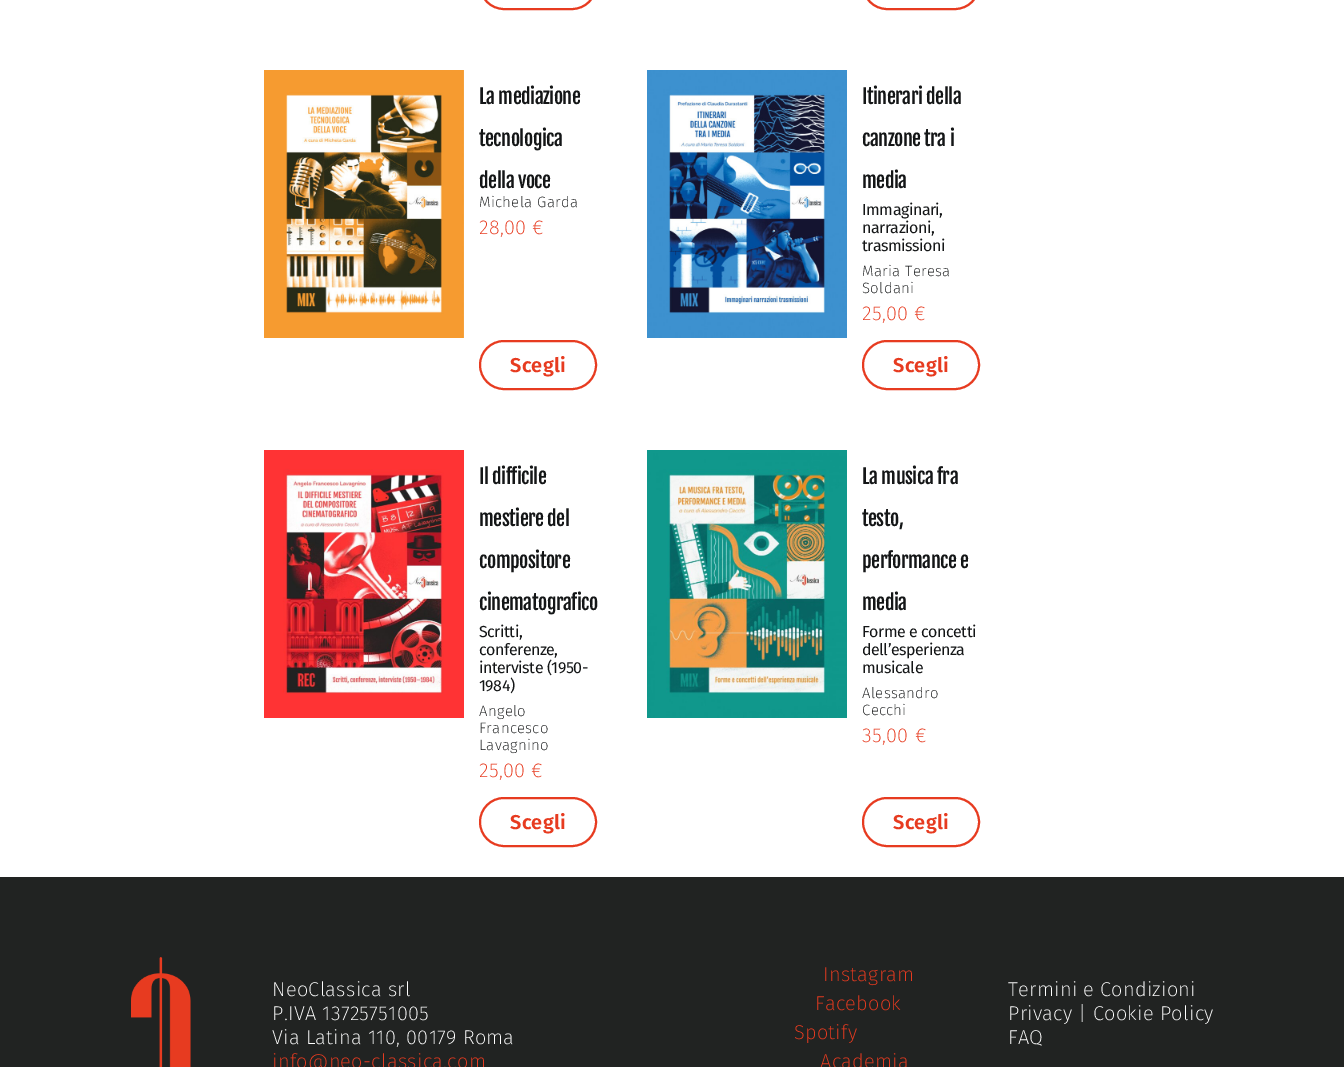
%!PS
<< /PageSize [1344 1067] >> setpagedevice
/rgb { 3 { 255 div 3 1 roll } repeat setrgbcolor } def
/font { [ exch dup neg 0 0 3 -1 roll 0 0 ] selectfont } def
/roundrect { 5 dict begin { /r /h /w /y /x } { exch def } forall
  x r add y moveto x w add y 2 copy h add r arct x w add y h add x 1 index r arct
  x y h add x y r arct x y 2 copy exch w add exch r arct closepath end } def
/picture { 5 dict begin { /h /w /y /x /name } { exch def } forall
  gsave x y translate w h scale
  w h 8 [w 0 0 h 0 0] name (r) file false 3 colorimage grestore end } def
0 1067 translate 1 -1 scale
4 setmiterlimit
255 255 255 rgb
0 0 1344 1067 rectfill
231 59 32 rgb
2 setlinewidth
480 -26 116 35 24 roundrect stroke
863 -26 116 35 24 roundrect stroke
(img/1.rgb) 264 70 200 268 picture
480 341 116 48 24 roundrect stroke
(img/2.rgb) 647 70 200 268 picture
863 341 116 48 24 roundrect stroke
(img/3.rgb) 264 450 200 268 picture
480 798 116 48 24 roundrect stroke
(img/4.rgb) 647 450 200 268 picture
863 798 116 48 24 roundrect stroke
33 35 34 rgb
0 877 1344 190 rectfill
(img/5.rgb) 131 957 60 110 picture
/FjallaOne-Regular 20 font
20 22 23 rgb
479 104 moveto -0.5 0 (La mediazione) ashow
479 146 moveto -0.5 0 (tecnologica) ashow
479 188 moveto -0.5 0 (della voce) ashow
/FiraSans-ExtraLight 15 font
479 207 moveto 0.3 0 (Michela Garda) ashow
/FiraSans-ExtraLight 20 font
231 59 32 rgb
479 234 moveto 0.3 0 (28,00 €) ashow
/FiraSans-SemiBold 20 font
510 372 moveto 0.3 0 (Scegli) ashow
/FjallaOne-Regular 20 font
20 22 23 rgb
862 104 moveto -0.5 0 (Itinerari della) ashow
862 146 moveto -0.5 0 (canzone tra i) ashow
862 188 moveto -0.5 0 (media) ashow
/FiraSans-Regular 16 font
862 215 moveto -0.5 0 (Immaginari,) ashow
862 233 moveto -0.5 0 (narrazioni,) ashow
862 251 moveto -0.5 0 (trasmissioni) ashow
/FiraSans-ExtraLight 15 font
862 276 moveto 0.3 0 (Maria Teresa) ashow
862 293 moveto 0.3 0 (Soldani) ashow
/FiraSans-ExtraLight 20 font
231 59 32 rgb
862 320 moveto 0.3 0 (25,00 €) ashow
/FiraSans-SemiBold 20 font
893 372 moveto 0.3 0 (Scegli) ashow
/FjallaOne-Regular 20 font
20 22 23 rgb
479 484 moveto -0.5 0 (Il difficile) ashow
479 526 moveto -0.5 0 (mestiere del) ashow
479 568 moveto -0.5 0 (compositore) ashow
479 610 moveto -0.5 0 (cinematografico) ashow
/FiraSans-Regular 16 font
479 637 moveto -0.5 0 (Scritti,) ashow
479 655 moveto -0.5 0 (conferenze,) ashow
479 673 moveto -0.5 0 (interviste \(1950-) ashow
479 691 moveto -0.5 0 (1984\)) ashow
/FiraSans-ExtraLight 15 font
479 716 moveto 0.3 0 (Angelo) ashow
479 733 moveto 0.3 0 (Francesco) ashow
479 750 moveto 0.3 0 (Lavagnino) ashow
/FiraSans-ExtraLight 20 font
231 59 32 rgb
479 777 moveto 0.3 0 (25,00 €) ashow
/FiraSans-SemiBold 20 font
510 829 moveto 0.3 0 (Scegli) ashow
/FjallaOne-Regular 20 font
20 22 23 rgb
862 484 moveto -0.5 0 (La musica fra) ashow
862 526 moveto -0.5 0 (testo,) ashow
862 568 moveto -0.5 0 (performance e) ashow
862 610 moveto -0.5 0 (media) ashow
/FiraSans-Regular 16 font
862 637 moveto -0.5 0 (Forme e concetti) ashow
862 655 moveto -0.5 0 (dell’esperienza) ashow
862 673 moveto -0.5 0 (musicale) ashow
/FiraSans-ExtraLight 15 font
862 698 moveto 0.3 0 (Alessandro) ashow
862 715 moveto 0.3 0 (Cecchi) ashow
/FiraSans-ExtraLight 20 font
231 59 32 rgb
862 742 moveto 0.3 0 (35,00 €) ashow
/FiraSans-SemiBold 20 font
893 829 moveto 0.3 0 (Scegli) ashow
/FiraSans-ExtraLight 20 font
255 255 255 rgb
272 996 moveto 0.3 0 (NeoClassica srl) ashow
272 1020 moveto 0.3 0 (P.IVA 13725751005) ashow
272 1044 moveto 0.3 0 (Via Latina 110, 00179 Roma) ashow
231 59 32 rgb
272 1068 moveto 0.3 0 (info@neo-classica.com) ashow
823 981 moveto 0.3 0 (Instagram) ashow
815 1010 moveto 0.3 0 (Facebook) ashow
794 1039 moveto 0.3 0 (Spotify) ashow
820 1068 moveto 0.3 0 (Academia) ashow
255 255 255 rgb
1008 996 moveto 0.3 0 (Termini e Condizioni) ashow
1008 1020 moveto 0.3 0 (Privacy | Cookie Policy) ashow
1008 1044 moveto 0.3 0 (FAQ) ashow
showpage
